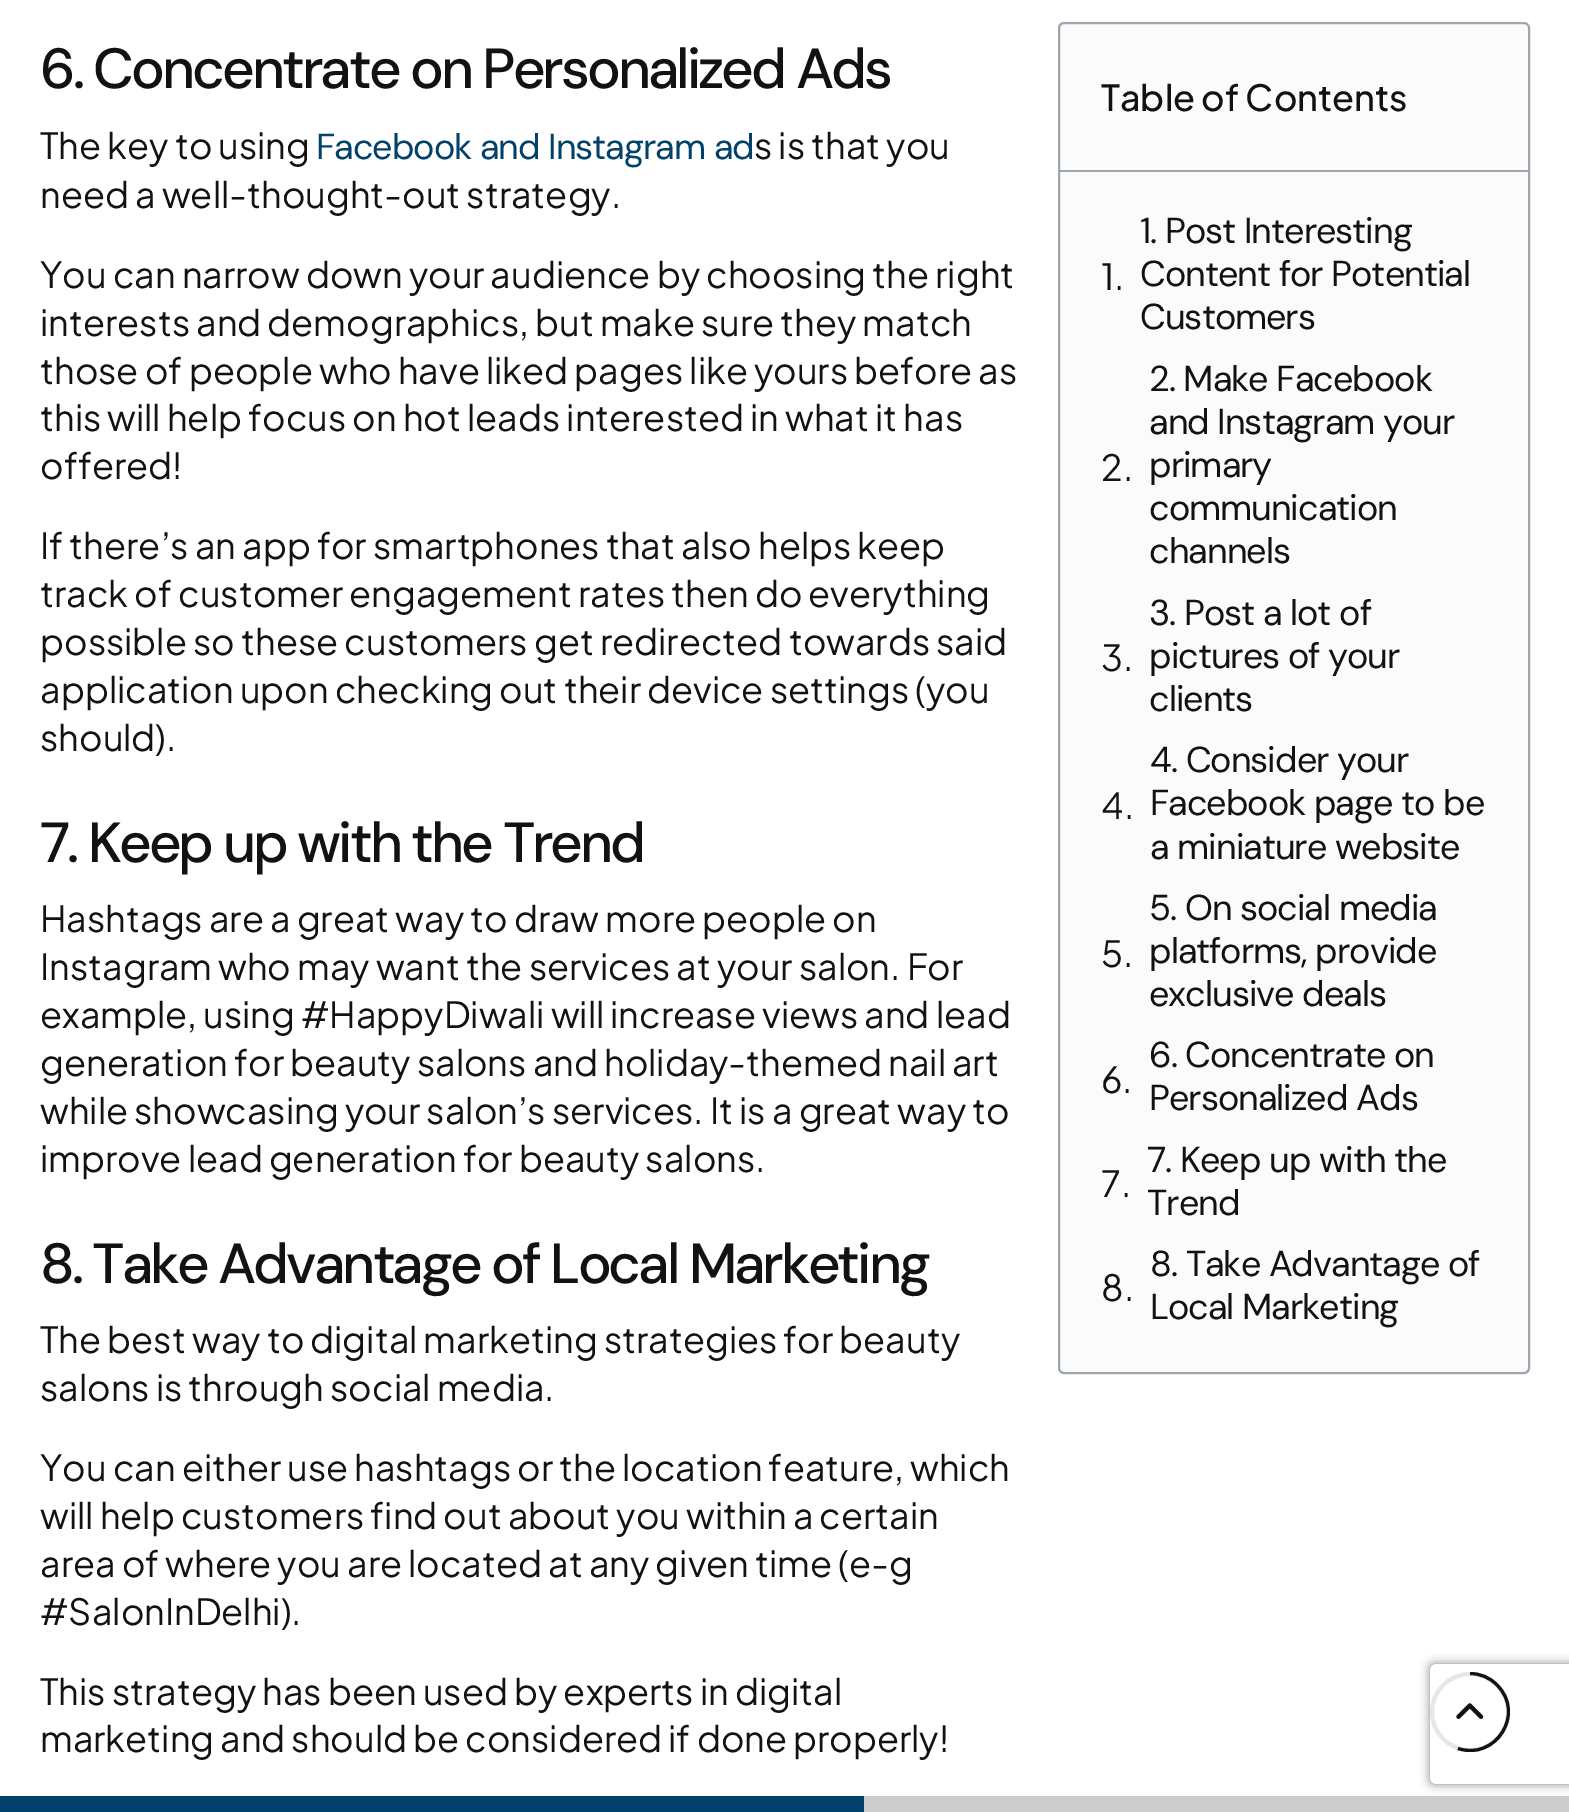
%!PS
<< /PageSize [1569 1812] /PageUsesTransparency true >> setpagedevice
/rgb { 3 { 255 div 3 1 roll } repeat setrgbcolor } def
/font { [ exch dup neg 0 0 3 -1 roll 0 0 ] selectfont } def
/alpha { dup .setfillconstantalpha .setstrokeconstantalpha } def
/circle { newpath 0 360 arc closepath } def
/roundrect { 5 dict begin { /r /h /w /y /x } { exch def } forall
  x r add y moveto x w add y 2 copy h add r arct x w add y h add x 1 index r arct
  x y h add x y r arct x y 2 copy exch w add exch r arct closepath end } def
/shadow { 12 dict begin { /a /b /q /h /w /y /x } { exch def } forall gsave /was 0 def
  9 -2 -9 { dup b mul 4 div /e exch def 1 sub .425 mul 2.718 exch exp 1 add a .99 .min exch div /now exch def
    1 1 now sub 1 was sub div sub alpha /was now def
    w h .min e 2 mul add 0 gt { x e sub y e sub w e 2 mul add h e 2 mul add
      q e add b .6 mul add w h .min 2 div e add .min 0 .max roundrect fill } if } for grestore end } def
/picture { 5 dict begin { /h /w /y /x /name } { exch def } forall
  gsave x y translate w h scale
  w h 8 [w 0 0 h 0 0] name (r) file false 3 colorimage grestore end } def
0 .pushpdf14devicefilter
0 1812 translate 1 -1 scale
4 setmiterlimit
255 255 255 rgb
0 0 1569 1812 rectfill
251 251 251 rgb
1059 23 470 1350 5 roundrect gsave fill grestore
157 165 174 rgb
2 setlinewidth
stroke
1060 170 468 2 rectfill
gsave
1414 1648 moveto 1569 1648 lineto 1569 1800 lineto 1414 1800 lineto closepath 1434 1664 moveto 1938 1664 lineto 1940 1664 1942 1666 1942 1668 curveto 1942 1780 lineto 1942 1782 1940 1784 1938 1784 curveto 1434 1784 lineto 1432 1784 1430 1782 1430 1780 curveto 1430 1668 lineto 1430 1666 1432 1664 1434 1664 curveto closepath eoclip newpath
128 128 128 rgb
1430 1664 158 120 4 5 1 shadow
grestore
230 230 230 rgb
4 setlinewidth
1470 1712 38 circle stroke
(img/1.rgb) 1456 1703 28 16 picture
gsave
1430 1672 80 80 rectclip
18 18 18 rgb
3.1 setlinewidth
1470 1673.5 moveto 1480 1673.5 1490 1677.5 1497 1685 curveto 1526 1713.5 1495.5 1761 1458 1748.5 curveto stroke
grestore
204 204 204 rgb
864 1796 705 16 rectfill
2 66 106 rgb
0 1796 864 16 rectfill
/DMSans-Medium 56.5 font
18 18 18 rgb
40 88 moveto -3 0 (6. Concentrate on Personalized Ads) ashow
/PlusJakartaSans-Regular 36 font
40 159 moveto (The key to using) show
/DMSans-Regular 36 font
2 66 106 rgb
316 159 moveto -1 0 (Facebook and Instagram ad) ashow
/PlusJakartaSans-Regular 36 font
18 18 18 rgb
[
  [(s is that you) 754 159]
  [(need a well-thought-out strategy.) 40 208]
  [(You can narrow down your audience by choosing the right) 40 288]
  [(interests and demographics, but make sure they match) 40 336]
  [(those of people who have liked pages like yours before as) 40 384]
  [(this will help focus on hot leads interested in what it has) 40 431]
  [(offered!) 40 479]
  [(If there’s an app for smartphones that also helps keep) 40 559]
  [(track of customer engagement rates then do everything) 40 607]
  [(possible so these customers get redirected towards said) 40 655]
  [(application upon checking out their device settings \(you) 40 703]
  [(should\).) 40 751]
] { aload pop moveto show } forall
/DMSans-Medium 56.5 font
40 862 moveto -3 0 (7. Keep up with the Trend) ashow
/PlusJakartaSans-Regular 36 font
[
  [(Hashtags are a great way to draw more people on) 40 932]
  [(Instagram who may want the services at your salon. For) 40 980]
  [(example, using #HappyDiwali will increase views and lead) 40 1028]
  [(generation for beauty salons and holiday-themed nail art) 40 1076]
  [(while showcasing your salon’s services. It is a great way to) 40 1124]
  [(improve lead generation for beauty salons.) 40 1172]
] { aload pop moveto show } forall
/DMSans-Medium 56.5 font
40 1283 moveto -3 0 (8. Take Advantage of Local Marketing) ashow
/PlusJakartaSans-Regular 36 font
[
  [(The best way to digital marketing strategies for beauty) 40 1353]
  [(salons is through social media.) 40 1401]
  [(You can either use hashtags or the location feature, which) 40 1481]
  [(will help customers find out about you within a certain) 40 1529]
  [(area of where you are located at any given time \(e-g) 40 1577]
  [(#SalonInDelhi\).) 40 1625]
  [(This strategy has been used by experts in digital) 40 1705]
  [(marketing and should be considered if done properly!) 40 1752]
] { aload pop moveto show } forall
/PlusJakartaSans-Medium 36 font
1101 111 moveto (Table of Contents) show
/PlusJakartaSans-Regular 36 font
1101 290 moveto (1.) show
/DMSans-Regular 36 font
1140 243 moveto -1 0 (1. Post Interesting) ashow
1140 286 moveto -1 0 (Content for Potential) ashow
1140 329 moveto -1 0 (Customers) ashow
/PlusJakartaSans-Regular 36 font
1101 481 moveto (2.) show
/DMSans-Regular 36 font
1149 391 moveto -1 0 (2. Make Facebook) ashow
1149 434 moveto -1 0 (and Instagram your) ashow
1149 477 moveto -1 0 (primary) ashow
1149 520 moveto -1 0 (communication) ashow
1149 563 moveto -1 0 (channels) ashow
/PlusJakartaSans-Regular 36 font
1101 671 moveto (3.) show
/DMSans-Regular 36 font
1149 625 moveto -1 0 (3. Post a lot of) ashow
1149 668 moveto -1 0 (pictures of your) ashow
1149 711 moveto -1 0 (clients) ashow
/PlusJakartaSans-Regular 36 font
1101 819 moveto (4.) show
/DMSans-Regular 36 font
1150 772 moveto -1 0 (4. Consider your) ashow
1150 815 moveto -1 0 (Facebook page to be) ashow
1150 859 moveto -1 0 (a miniature website) ashow
/PlusJakartaSans-Regular 36 font
1101 967 moveto (5.) show
/DMSans-Regular 36 font
1149 920 moveto -1 0 (5. On social media) ashow
1149 963 moveto -1 0 (platforms, provide) ashow
1149 1006 moveto -1 0 (exclusive deals) ashow
/PlusJakartaSans-Regular 36 font
1101 1093 moveto (6.) show
/DMSans-Regular 36 font
1149 1067 moveto -1 0 (6. Concentrate on) ashow
1149 1110 moveto -1 0 (Personalized Ads) ashow
/PlusJakartaSans-Regular 36 font
1101 1197 moveto (7.) show
/DMSans-Regular 36 font
1147 1172 moveto -1 0 (7. Keep up with the) ashow
1147 1215 moveto -1 0 (Trend) ashow
/PlusJakartaSans-Regular 36 font
1101 1301 moveto (8.) show
/DMSans-Regular 36 font
1150 1276 moveto -1 0 (8. Take Advantage of) ashow
1150 1319 moveto -1 0 (Local Marketing) ashow
.poppdf14devicefilter showpage
